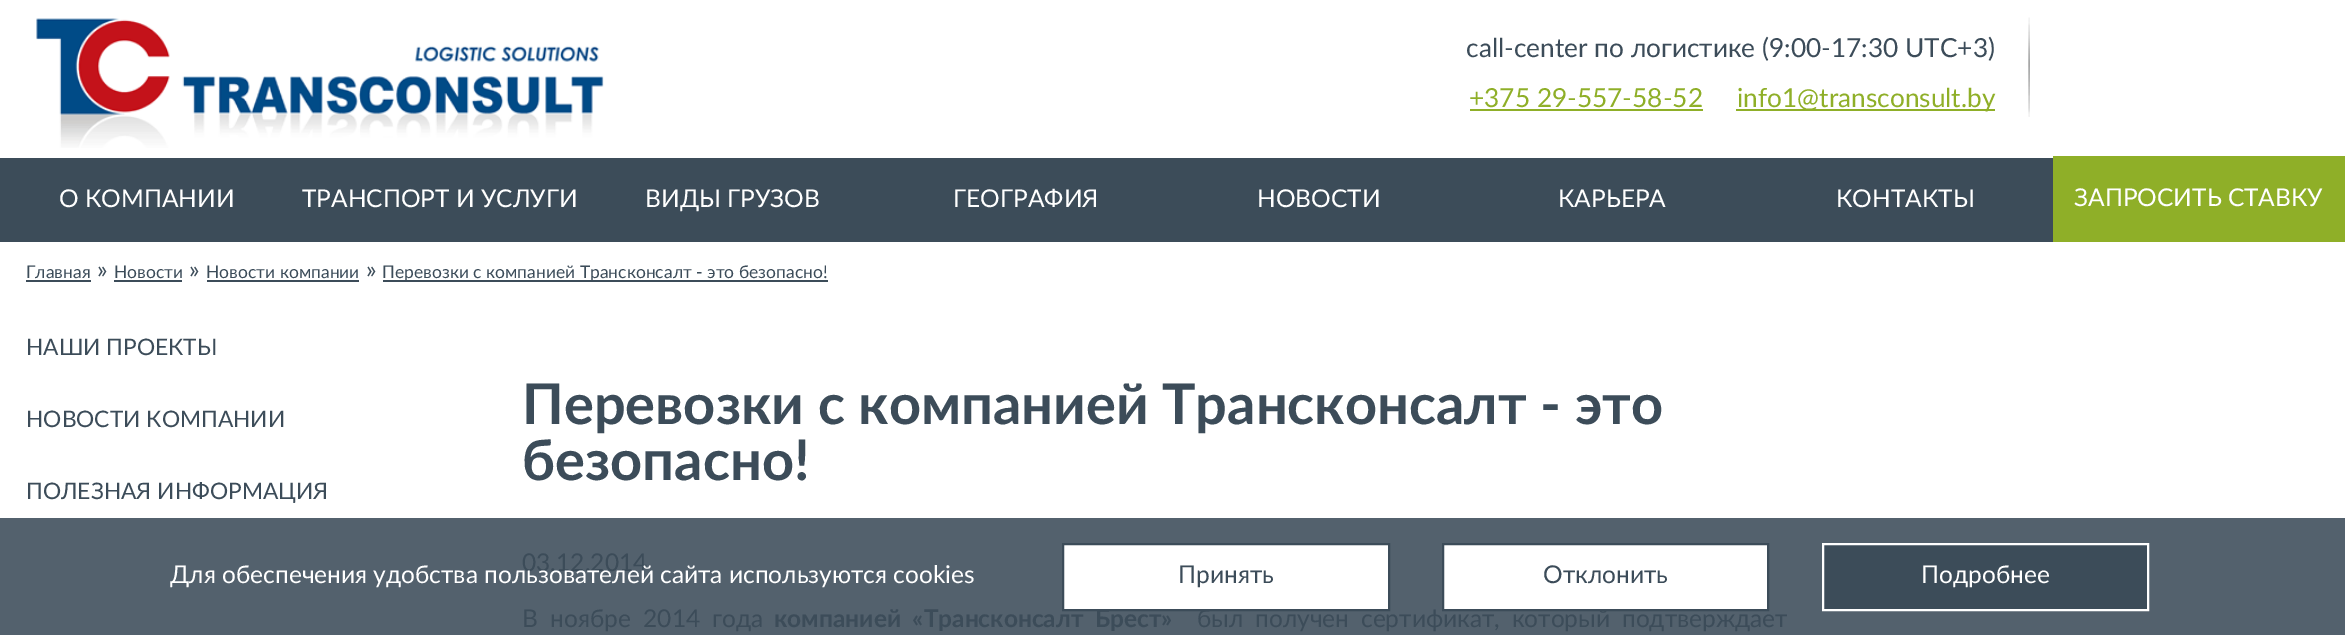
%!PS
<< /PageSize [2345 635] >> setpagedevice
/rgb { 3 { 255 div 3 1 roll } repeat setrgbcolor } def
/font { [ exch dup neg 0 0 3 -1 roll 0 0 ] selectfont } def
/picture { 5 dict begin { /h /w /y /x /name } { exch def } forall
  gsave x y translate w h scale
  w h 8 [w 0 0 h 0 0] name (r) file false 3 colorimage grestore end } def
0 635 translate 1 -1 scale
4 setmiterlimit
255 255 255 rgb
0 0 2345 635 rectfill
83 97 109 rgb
0 518 2345 117 rectfill
(img/1.rgb) 36 18 568 130 picture
(img/2.rgb) 2028 17 2 100 picture
[
  [1470 109 233 2 143 175 40]
  [1736 109 259 2 143 175 40]
  [0 158 2053 84 60 76 89]
  [2053 156 292 86 143 175 40]
  [26 280 65 2 60 76 89]
  [114 280 68 2 60 76 89]
  [207 280 152 2 60 76 89]
  [383 280 445 2 60 76 89]
] { aload pop rgb rectfill } forall
1823 544 moveto 2148 544 lineto 2148 610 lineto 1823 610 lineto closepath gsave fill grestore
255 255 255 rgb
2 setlinewidth
stroke
/Lato-Regular 26.25 font
60 76 89 rgb
1466 57 moveto (call-center по логистике \(9:00-17:30 UTC+3\)) show
143 175 40 rgb
1469 107 moveto (+375 29-557-58-52) show
1737 107 moveto (info1@transconsult.by) show
/Lato-Regular 24.5 font
255 255 255 rgb
[
  [(О КОМПАНИИ) 59 207]
  [(ТРАНСПОРТ И УСЛУГИ) 302 207]
  [(ВИДЫ ГРУЗОВ) 645 207]
  [(ГЕОГРАФИЯ) 953 207]
  [(НОВОСТИ) 1257 207]
  [(КАРЬЕРА) 1558 207]
  [(КОНТАКТЫ) 1836 207]
  [(ЗАПРОСИТЬ СТАВКУ) 2074 206]
] { aload pop moveto show } forall
/Lato-Regular 17.5 font
60 76 89 rgb
26 278 moveto (Главная) show
/Lato-Regular 24.5 font
97 278 moveto (») show
/Lato-Regular 17.5 font
114 278 moveto (Новости) show
/Lato-Regular 24.5 font
189 278 moveto (») show
/Lato-Regular 17.5 font
206 278 moveto (Новости компании) show
/Lato-Regular 24.5 font
366 278 moveto (») show
/Lato-Regular 17.5 font
382 278 moveto (Перевозки с компанией Трансконсалт - это безопасно!) show
/Lato-Regular 22.75 font
[
  [(НАШИ ПРОЕКТЫ) 26 355]
  [(НОВОСТИ КОМПАНИИ) 26 427]
  [(ПОЛЕЗНАЯ ИНФОРМАЦИЯ) 26 499]
] { aload pop moveto show } forall
/Lato-Bold 56 font
522 424 moveto (Перевозки с компанией Трансконсалт - это) show
522 480 moveto (безопасно!) show
/Lato-Regular 24.5 font
522 571 moveto (03.12.2014) show
522 627 moveto 6 0 32 (В ноябре 2014 года) widthshow
/Lato-Bold 24.5 font
774 627 moveto 5.5 0 32 (компанией «Трансконсалт Брест») widthshow
/Lato-Regular 24.5 font
1197 627 moveto 5.5 0 32 (был получен сертификат, который подтверждает) widthshow
255 255 255 rgb
170 583 moveto (Для обеспечения удобства пользователей сайта используются cookies) show
1063 544 moveto 1389 544 lineto 1389 610 lineto 1063 610 lineto closepath gsave fill grestore
60 76 89 rgb
stroke
1178 583 moveto (Принять) show
255 255 255 rgb
1443 544 moveto 1768 544 lineto 1768 610 lineto 1443 610 lineto closepath gsave fill grestore
60 76 89 rgb
stroke
1543 583 moveto (Отклонить) show
255 255 255 rgb
1921 583 moveto (Подробнее) show
showpage
